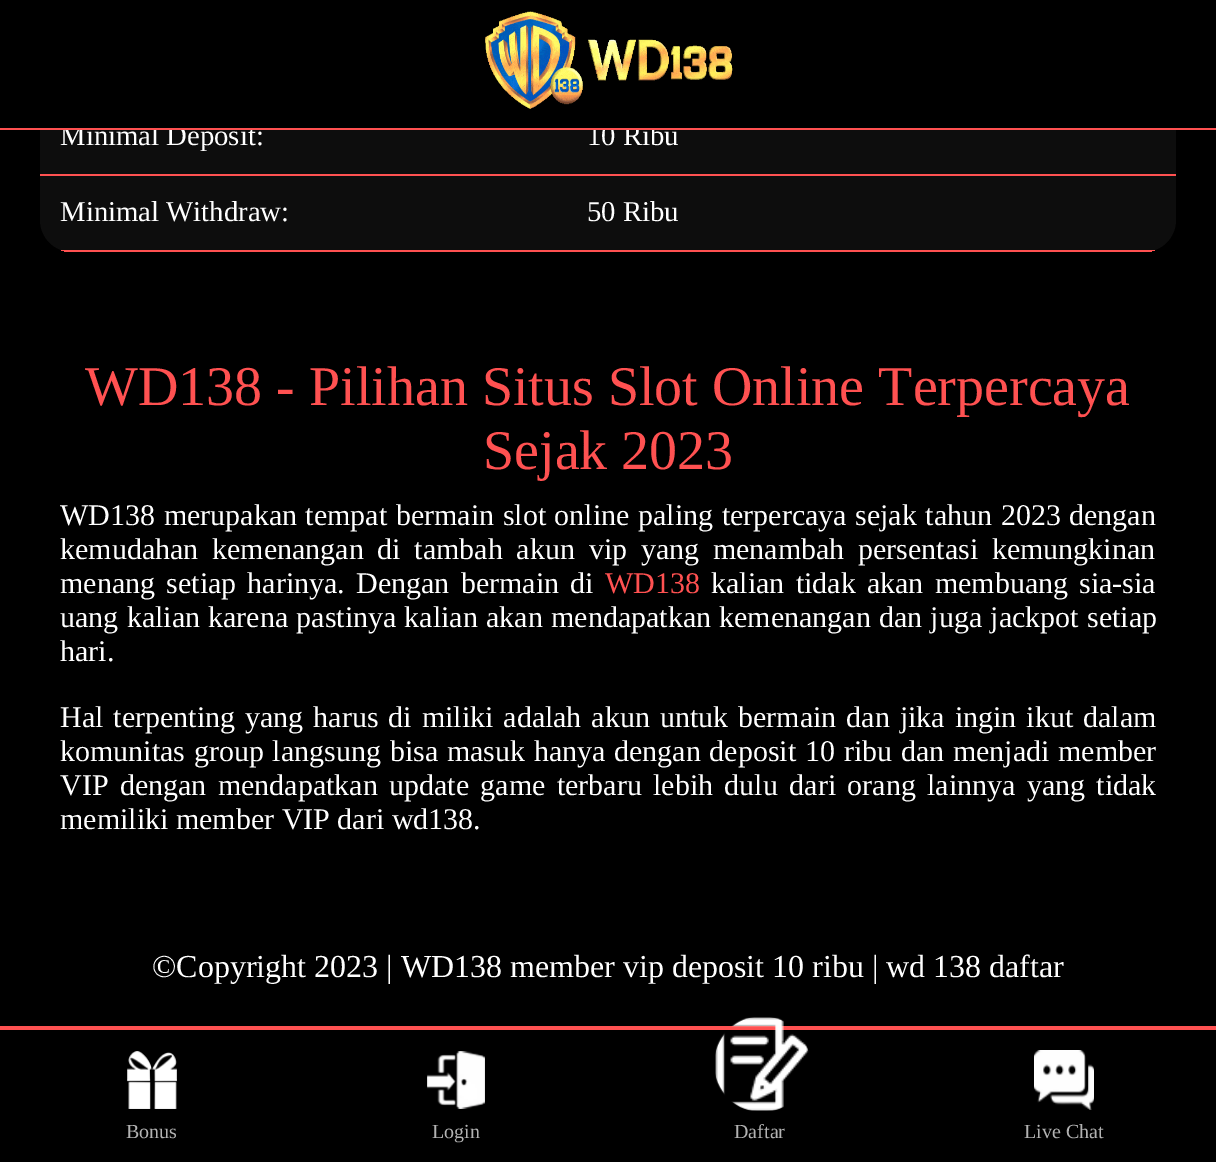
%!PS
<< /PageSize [1216 1162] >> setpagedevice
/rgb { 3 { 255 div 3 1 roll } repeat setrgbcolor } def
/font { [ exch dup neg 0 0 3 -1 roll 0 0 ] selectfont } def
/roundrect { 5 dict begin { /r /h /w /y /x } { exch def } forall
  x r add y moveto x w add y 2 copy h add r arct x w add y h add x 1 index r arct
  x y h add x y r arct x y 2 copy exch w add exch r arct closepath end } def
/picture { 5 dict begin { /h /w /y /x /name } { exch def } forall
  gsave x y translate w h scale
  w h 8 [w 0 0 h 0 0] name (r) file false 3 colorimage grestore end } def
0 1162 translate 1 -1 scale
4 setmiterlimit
0 0 0 rgb
0 0 1216 1162 rectfill
13 13 13 rgb
40 -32 1136 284 32 roundrect fill
255 81 81 rgb
40 174 1136 2 rectfill
gsave
40 -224 1136 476 32 roundrect clip newpath
61 250 1094 2 rectfill
grestore
0 1026 1216 4 rectfill
(img/2.rgb) 127 1051 50 58 picture
(img/3.rgb) 427 1051 58 58 picture
(img/4.rgb) 715 1017 94 94 picture
(img/5.rgb) 1034 1050 60 60 picture
/LiberationSerif-Regular 28.75 font
255 255 255 rgb
60 145 moveto (Minimal Deposit:) show
587 145 moveto (10 Ribu) show
0 0 0 rgb
40 0 1136 128 rectfill
(img/1.rgb) 485 11 248 98 picture
255 81 81 rgb
0 128 1216 2 rectfill
255 255 255 rgb
60 221 moveto (Minimal Withdraw:) show
587 221 moveto (50 Ribu) show
/LiberationSerif-Regular 56 font
255 81 81 rgb
85 405 moveto (WD138 - Pilihan Situs Slot Online Terpercaya) show
483 469 moveto (Sejak 2023) show
/LiberationSerif-Regular 30 font
255 255 255 rgb
60 525 moveto 1.1 0 32 (WD138 merupakan tempat bermain slot online paling terpercaya sejak tahun 2023 dengan) widthshow
60 559 moveto 6.25 0 32 (kemudahan kemenangan di tambah akun vip yang menambah persentasi kemungkinan) widthshow
60 593 moveto 3.75 0 32 (menang setiap harinya. Dengan bermain di) widthshow
255 81 81 rgb
605 593 moveto (WD138) show
255 255 255 rgb
711 593 moveto 3.75 0 32 (kalian tidak akan membuang sia-sia) widthshow
60 627 moveto 0.75 0 32 (uang kalian karena pastinya kalian akan mendapatkan kemenangan dan juga jackpot setiap) widthshow
60 661 moveto (hari.) show
60 727 moveto 2.5 0 32 (Hal terpenting yang harus di miliki adalah akun untuk bermain dan jika ingin ikut dalam) widthshow
60 761 moveto 1.25 0 32 (komunitas group langsung bisa masuk hanya dengan deposit 10 ribu dan menjadi member) widthshow
60 795 moveto 3.9 0 32 (VIP dengan mendapatkan update game terbaru lebih dulu dari orang lainnya yang tidak) widthshow
60 829 moveto (memiliki member VIP dari wd138.) show
/LiberationSerif-Regular 32 font
152 977 moveto (©Copyright 2023 | WD138 member vip deposit 10 ribu | wd 138 daftar) show
/LiberationSerif-Regular 20 font
178 178 178 rgb
[
  [(Bonus) 126 1138]
  [(Login) 432 1138]
  [(Daftar) 734 1138]
  [(Live Chat) 1024 1138]
] { aload pop moveto show } forall
showpage
